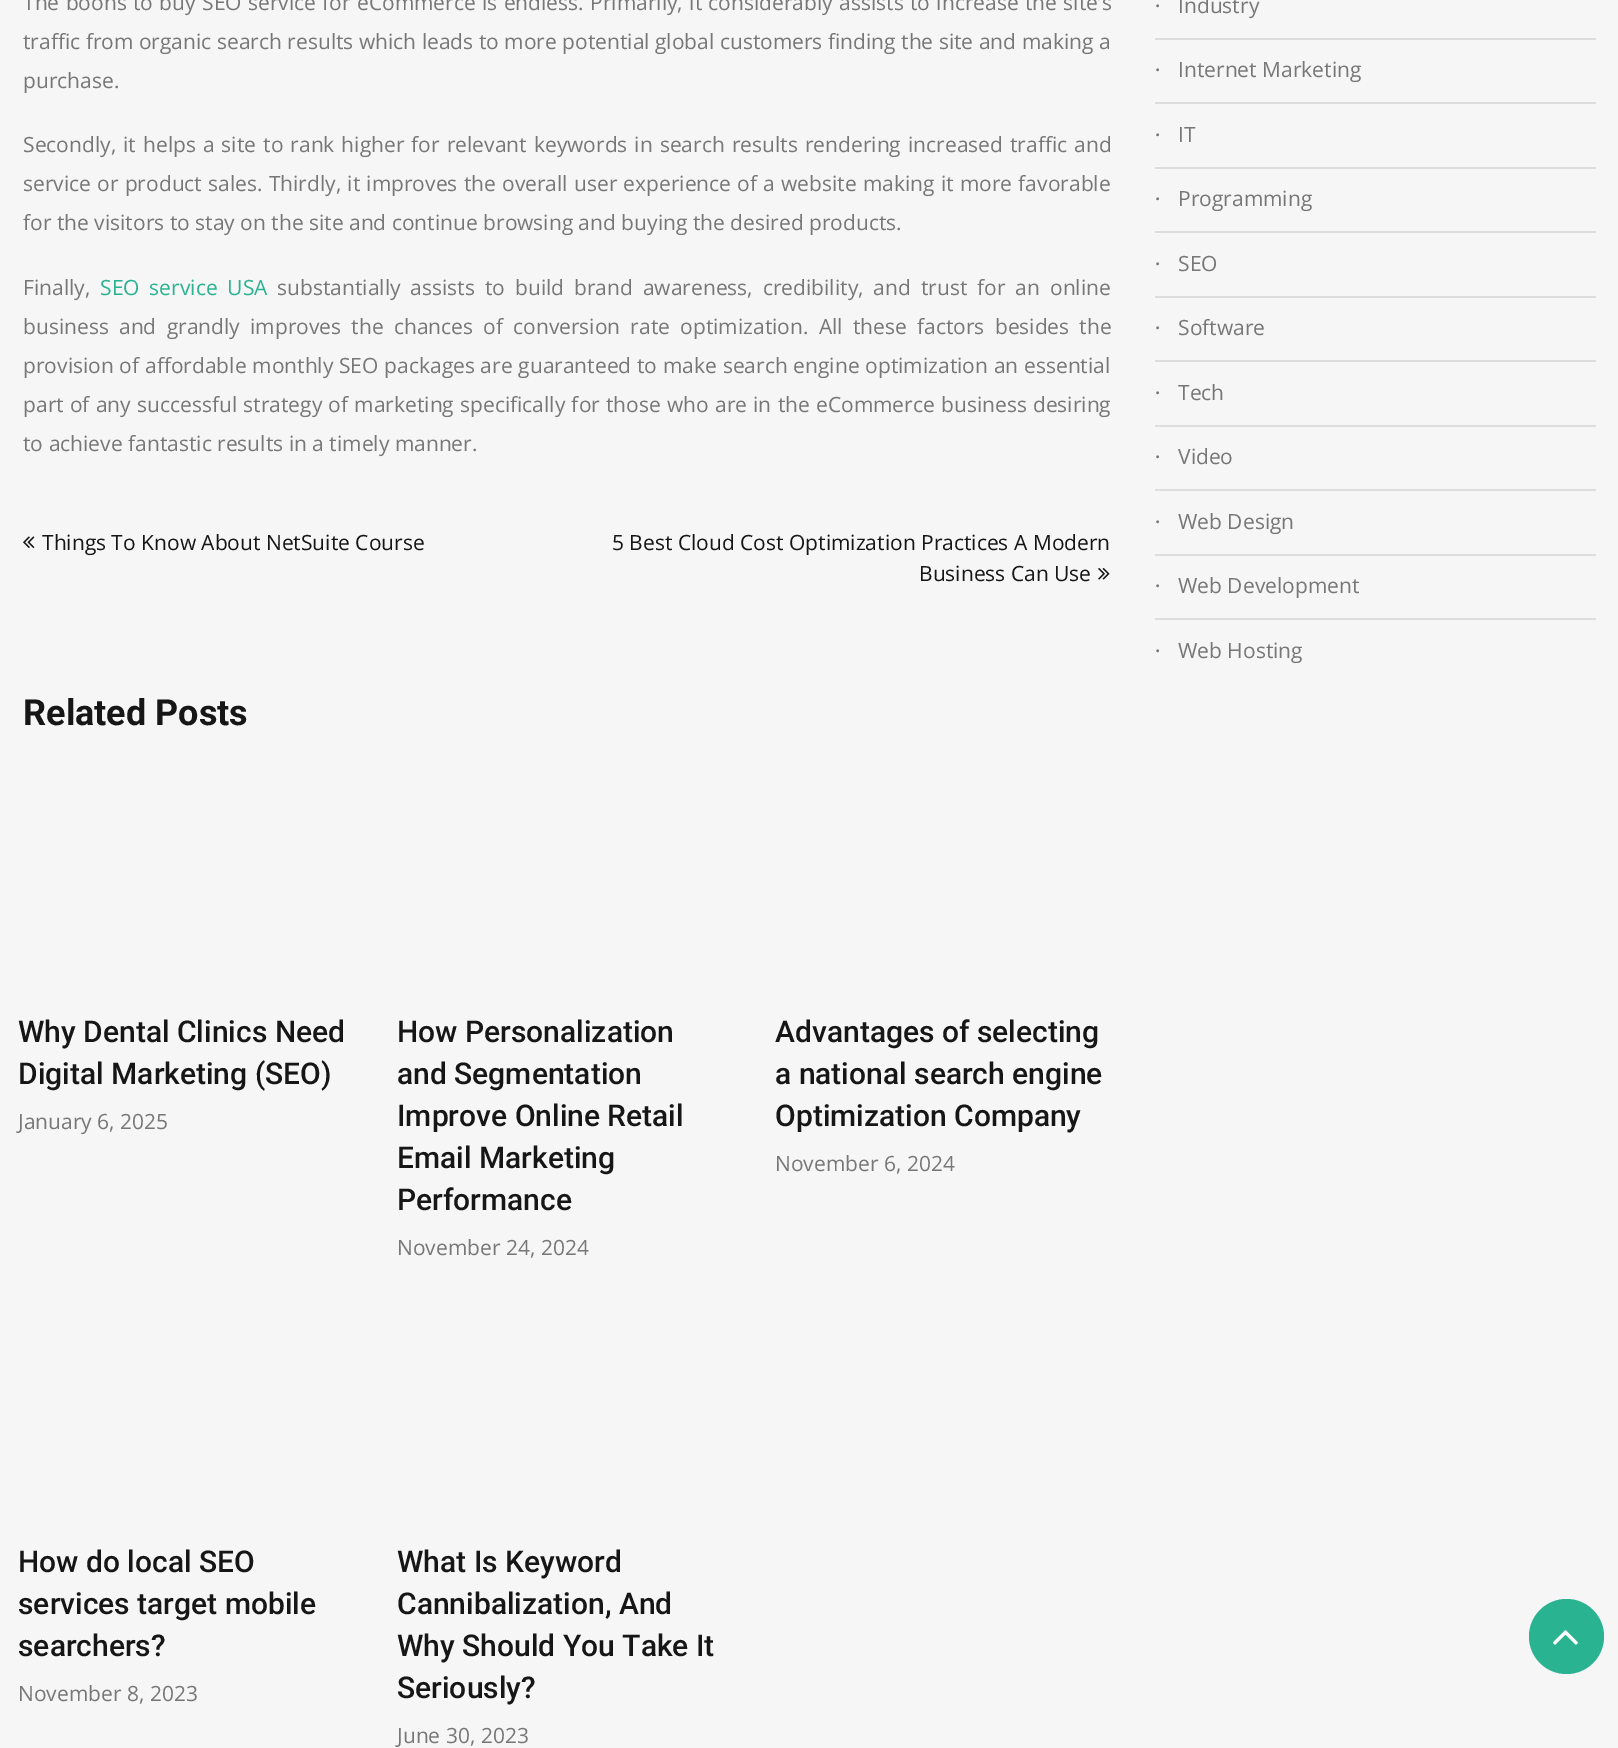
%!PS
<< /PageSize [1618 1748] >> setpagedevice
/rgb { 3 { 255 div 3 1 roll } repeat setrgbcolor } def
/font { [ exch dup neg 0 0 3 -1 roll 0 0 ] selectfont } def
/circle { newpath 0 360 arc closepath } def
/picture { 5 dict begin { /h /w /y /x /name } { exch def } forall
  gsave x y translate w h scale
  w h 8 [w 0 0 h 0 0] name (r) file false 3 colorimage grestore end } def
0 1748 translate 1 -1 scale
4 setmiterlimit
246 246 246 rgb
0 0 1618 1748 rectfill
(img/1.rgb) 23 536 12 12 picture
(img/2.rgb) 1098 568 12 12 picture
[
  [1155 38 441 2 221 221 221]
  [1155 102 441 2 221 221 221]
  [1155 167 441 2 221 221 221]
  [1155 231 441 2 221 221 221]
  [1155 296 441 2 221 221 221]
  [1155 360 441 2 221 221 221]
  [1155 425 441 2 221 221 221]
  [1155 489 441 2 221 221 221]
  [1155 554 441 2 221 221 221]
  [1155 618 441 2 221 221 221]
] { aload pop rgb rectfill } forall
42 179 145 rgb
1566.5 1636.5 37.5 circle fill
(img/3.rgb) 1553 1630 25 15 picture
/OpenSans-Regular 21 font
119 119 119 rgb
23 10 moveto 0.9 0 32 (The boons to buy SEO service for eCommerce is endless. Primarily, it considerably assists to increase the site’s) widthshow
23 49 moveto (traffic from organic search results which leads to more potential global customers finding the site and making a) show
23 88 moveto (purchase.) show
23 152 moveto 1.6 0 32 (Secondly, it helps a site to rank higher for relevant keywords in search results rendering increased traffic and) widthshow
23 191 moveto 0.75 0 32 (service or product sales. Thirdly, it improves the overall user experience of a website making it more favorable) widthshow
23 230 moveto (for the visitors to stay on the site and continue browsing and buying the desired products.) show
23 295 moveto (Finally,) show
42 179 145 rgb
100 295 moveto 4.5 0 32 (SEO service USA) widthshow
119 119 119 rgb
277 295 moveto 4.5 0 32 (substantially assists to build brand awareness, credibility, and trust for an online) widthshow
23 334 moveto 4.75 0 32 (business and grandly improves the chances of conversion rate optimization. All these factors besides the) widthshow
23 373 moveto 0.3 0 32 (provision of affordable monthly SEO packages are guaranteed to make search engine optimization an essential) widthshow
23 412 moveto 0.75 0 32 (part of any successful strategy of marketing specifically for those who are in the eCommerce business desiring) widthshow
23 451 moveto (to achieve fantastic results in a timely manner.) show
22 22 22 rgb
[
  [(Things To Know About NetSuite Course) 42 550]
  [(5 Best Cloud Cost Optimization Practices A Modern) 612 550]
  [(Business Can Use) 919 581]
] { aload pop moveto show } forall
/Roboto-Bold 36 font
23 725 moveto (Related Posts) show
/Roboto-Medium 30 font
18 1042 moveto (Why Dental Clinics Need) show
18 1084 moveto (Digital Marketing \(SEO\)) show
/OpenSans-Regular 21 font
119 119 119 rgb
18 1129 moveto (January 6, 2025) show
/Roboto-Medium 30 font
22 22 22 rgb
[
  [(How Personalization) 397 1042]
  [(and Segmentation) 397 1084]
  [(Improve Online Retail) 397 1126]
  [(Email Marketing) 397 1168]
  [(Performance) 397 1210]
] { aload pop moveto show } forall
/OpenSans-Regular 21 font
119 119 119 rgb
397 1255 moveto (November 24, 2024) show
/Roboto-Medium 30 font
22 22 22 rgb
[
  [(Advantages of selecting) 775 1042]
  [(a national search engine) 775 1084]
  [(Optimization Company) 775 1126]
] { aload pop moveto show } forall
/OpenSans-Regular 21 font
119 119 119 rgb
775 1171 moveto (November 6, 2024) show
/Roboto-Medium 30 font
22 22 22 rgb
[
  [(How do local SEO) 18 1572]
  [(services target mobile) 18 1614]
  [(searchers?) 18 1656]
] { aload pop moveto show } forall
/OpenSans-Regular 21 font
119 119 119 rgb
18 1701 moveto (November 8, 2023) show
/Roboto-Medium 30 font
22 22 22 rgb
[
  [(What Is Keyword) 397 1572]
  [(Cannibalization, And) 397 1614]
  [(Why Should You Take It) 397 1656]
  [(Seriously?) 397 1698]
] { aload pop moveto show } forall
/OpenSans-Regular 21 font
119 119 119 rgb
397 1743 moveto (June 30, 2023) show
/Merriweather-Regular 21 font
1155 7 moveto (.) show
/OpenSans-Regular 21 font
1178 13 moveto (Industry) show
/Merriweather-Regular 21 font
1155 71 moveto (.) show
/OpenSans-Regular 21 font
1178 77 moveto (Internet Marketing) show
/Merriweather-Regular 21 font
1155 136 moveto (.) show
/OpenSans-Regular 21 font
1178 142 moveto (IT) show
/Merriweather-Regular 21 font
1155 200 moveto (.) show
/OpenSans-Regular 21 font
1178 206 moveto (Programming) show
/Merriweather-Regular 21 font
1155 265 moveto (.) show
/OpenSans-Regular 21 font
1178 271 moveto (SEO) show
/Merriweather-Regular 21 font
1155 329 moveto (.) show
/OpenSans-Regular 21 font
1178 335 moveto (Software) show
/Merriweather-Regular 21 font
1155 394 moveto (.) show
/OpenSans-Regular 21 font
1178 400 moveto (Tech) show
/Merriweather-Regular 21 font
1155 458 moveto (.) show
/OpenSans-Regular 21 font
1178 464 moveto (Video) show
/Merriweather-Regular 21 font
1155 523 moveto (.) show
/OpenSans-Regular 21 font
1178 529 moveto (Web Design) show
/Merriweather-Regular 21 font
1155 587 moveto (.) show
/OpenSans-Regular 21 font
1178 593 moveto (Web Development) show
/Merriweather-Regular 21 font
1155 652 moveto (.) show
/OpenSans-Regular 21 font
1178 658 moveto (Web Hosting) show
showpage
